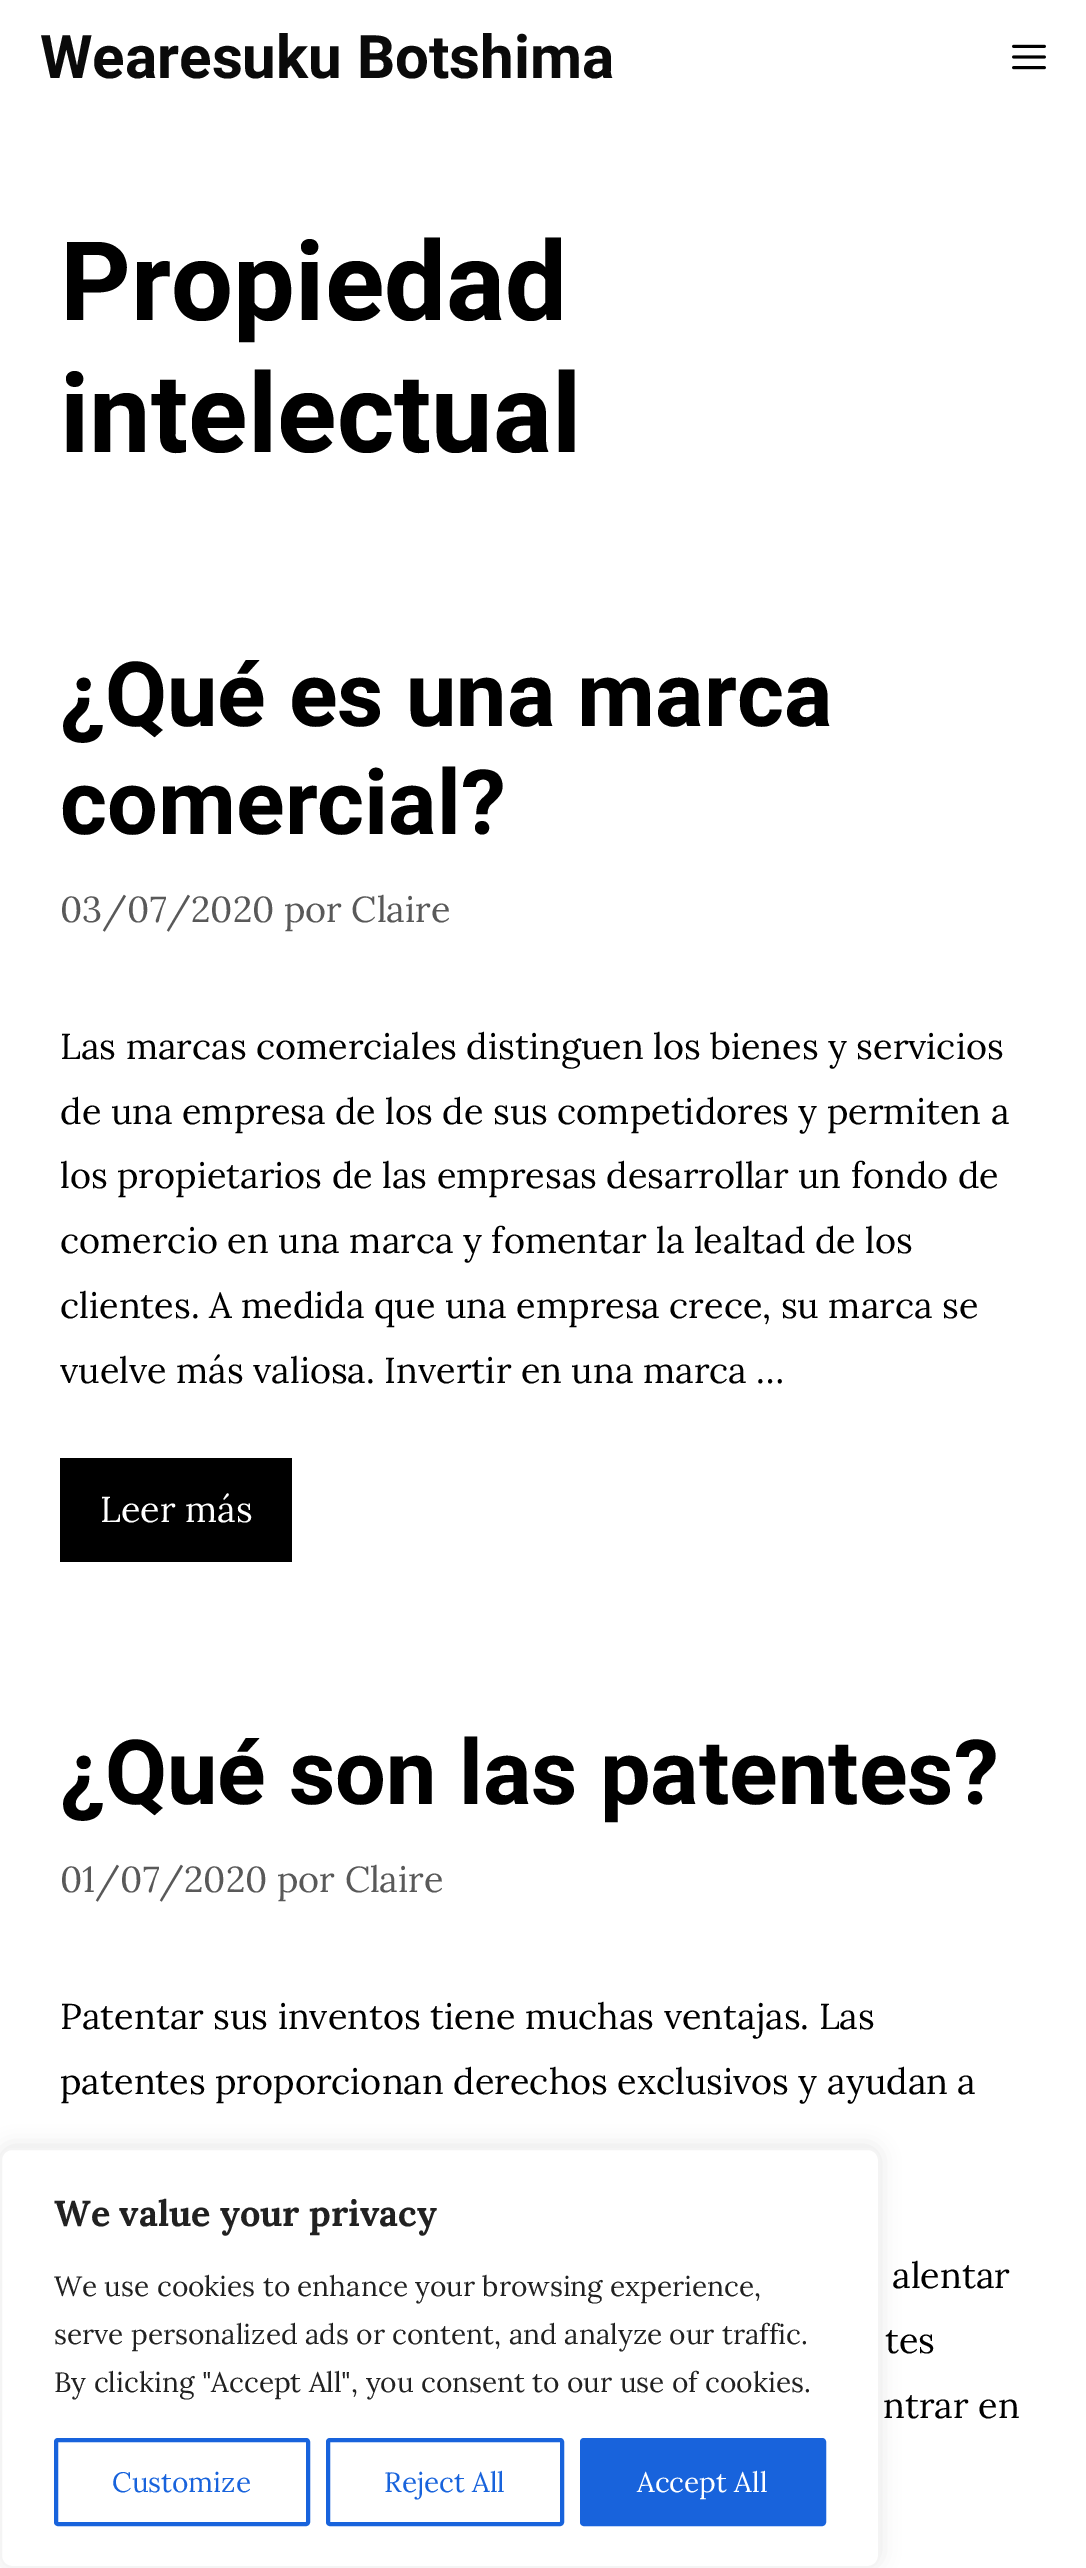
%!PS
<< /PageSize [1086 2568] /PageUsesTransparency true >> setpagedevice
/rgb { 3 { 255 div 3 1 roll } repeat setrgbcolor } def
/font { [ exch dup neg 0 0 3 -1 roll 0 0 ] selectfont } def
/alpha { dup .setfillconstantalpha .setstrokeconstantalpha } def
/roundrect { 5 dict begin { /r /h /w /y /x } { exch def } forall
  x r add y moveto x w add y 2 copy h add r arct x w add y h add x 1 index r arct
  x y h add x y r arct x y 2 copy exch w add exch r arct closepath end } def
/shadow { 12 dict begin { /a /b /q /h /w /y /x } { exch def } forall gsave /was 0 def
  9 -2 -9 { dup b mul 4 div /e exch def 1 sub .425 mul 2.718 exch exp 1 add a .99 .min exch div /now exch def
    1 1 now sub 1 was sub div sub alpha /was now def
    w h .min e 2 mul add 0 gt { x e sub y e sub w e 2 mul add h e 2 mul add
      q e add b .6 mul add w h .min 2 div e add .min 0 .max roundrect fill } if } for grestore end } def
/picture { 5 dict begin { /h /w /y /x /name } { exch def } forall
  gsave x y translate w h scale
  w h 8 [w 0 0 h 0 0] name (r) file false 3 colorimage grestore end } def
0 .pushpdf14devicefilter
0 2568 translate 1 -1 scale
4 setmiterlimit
255 255 255 rgb
0 0 1086 2568 rectfill
(img/1.rgb) 1012 44 34 26 picture
0 0 0 rgb
60 1458 232 104 rectfill
172 171 171 rgb
0 2146 880 420 12 10 0.3 shadow
255 255 255 rgb
1 2149 878 418 11 roundrect gsave fill grestore
244 244 244 rgb
2 setlinewidth
stroke
24 99 220 rgb
4 setlinewidth
56 2440 252 84 2 roundrect stroke
328 2440 234 84 2 roundrect stroke
582 2440 242 84 2 roundrect gsave fill grestore
stroke
/Heebo-Bold 60 font
10 10 10 rgb
40 78 moveto (Wearesuku Botshima) show
/Heebo-Bold 110 font
0 0 0 rgb
60 320 moveto (Propiedad) show
60 452 moveto (intelectual) show
/Heebo-Bold 90 font
60 726 moveto (¿Qué es una marca) show
60 834 moveto (comercial?) show
/Lora-Regular 36 font
89 89 89 rgb
60 922 moveto (03/07/2020 por Claire) show
0 0 0 rgb
[
  [(Las marcas comerciales distinguen los bienes y servicios) 60 1059]
  [(de una empresa de los de sus competidores y permiten a) 60 1124]
  [(los propietarios de las empresas desarrollar un fondo de) 60 1188]
  [(comercio en una marca y fomentar la lealtad de los) 60 1253]
  [(clientes. A medida que una empresa crece, su marca se) 60 1318]
  [(vuelve más valiosa. Invertir en una marca …) 60 1383]
] { aload pop moveto show } forall
255 255 255 rgb
100 1522 moveto (Leer más) show
/Heebo-Bold 90 font
0 0 0 rgb
60 1804 moveto (¿Qué son las patentes?) show
/Lora-Regular 36 font
89 89 89 rgb
60 1892 moveto (01/07/2020 por Claire) show
0 0 0 rgb
[
  [(Patentar sus inventos tiene muchas ventajas. Las) 60 2029]
  [(patentes proporcionan derechos exclusivos y ayudan a) 60 2094]
  [(alentar) 892 2288]
  [(tes) 885 2353]
  [(ntrar en) 883 2418]
] { aload pop moveto show } forall
/Lora-Bold 36 font
33 33 33 rgb
54 2226 moveto (We value your privacy) show
/Lora-Regular 28 font
[
  [(We use cookies to enhance your browsing experience,) 54 2296]
  [(serve personalized ads or content, and analyze our traffic.) 54 2344]
  [(By clicking "Accept All", you consent to our use of cookies.) 54 2392]
] { aload pop moveto show } forall
24 99 220 rgb
112 2492 moveto (Customize) show
384 2492 moveto (Reject All) show
255 255 255 rgb
637 2492 moveto (Accept All) show
.poppdf14devicefilter showpage
